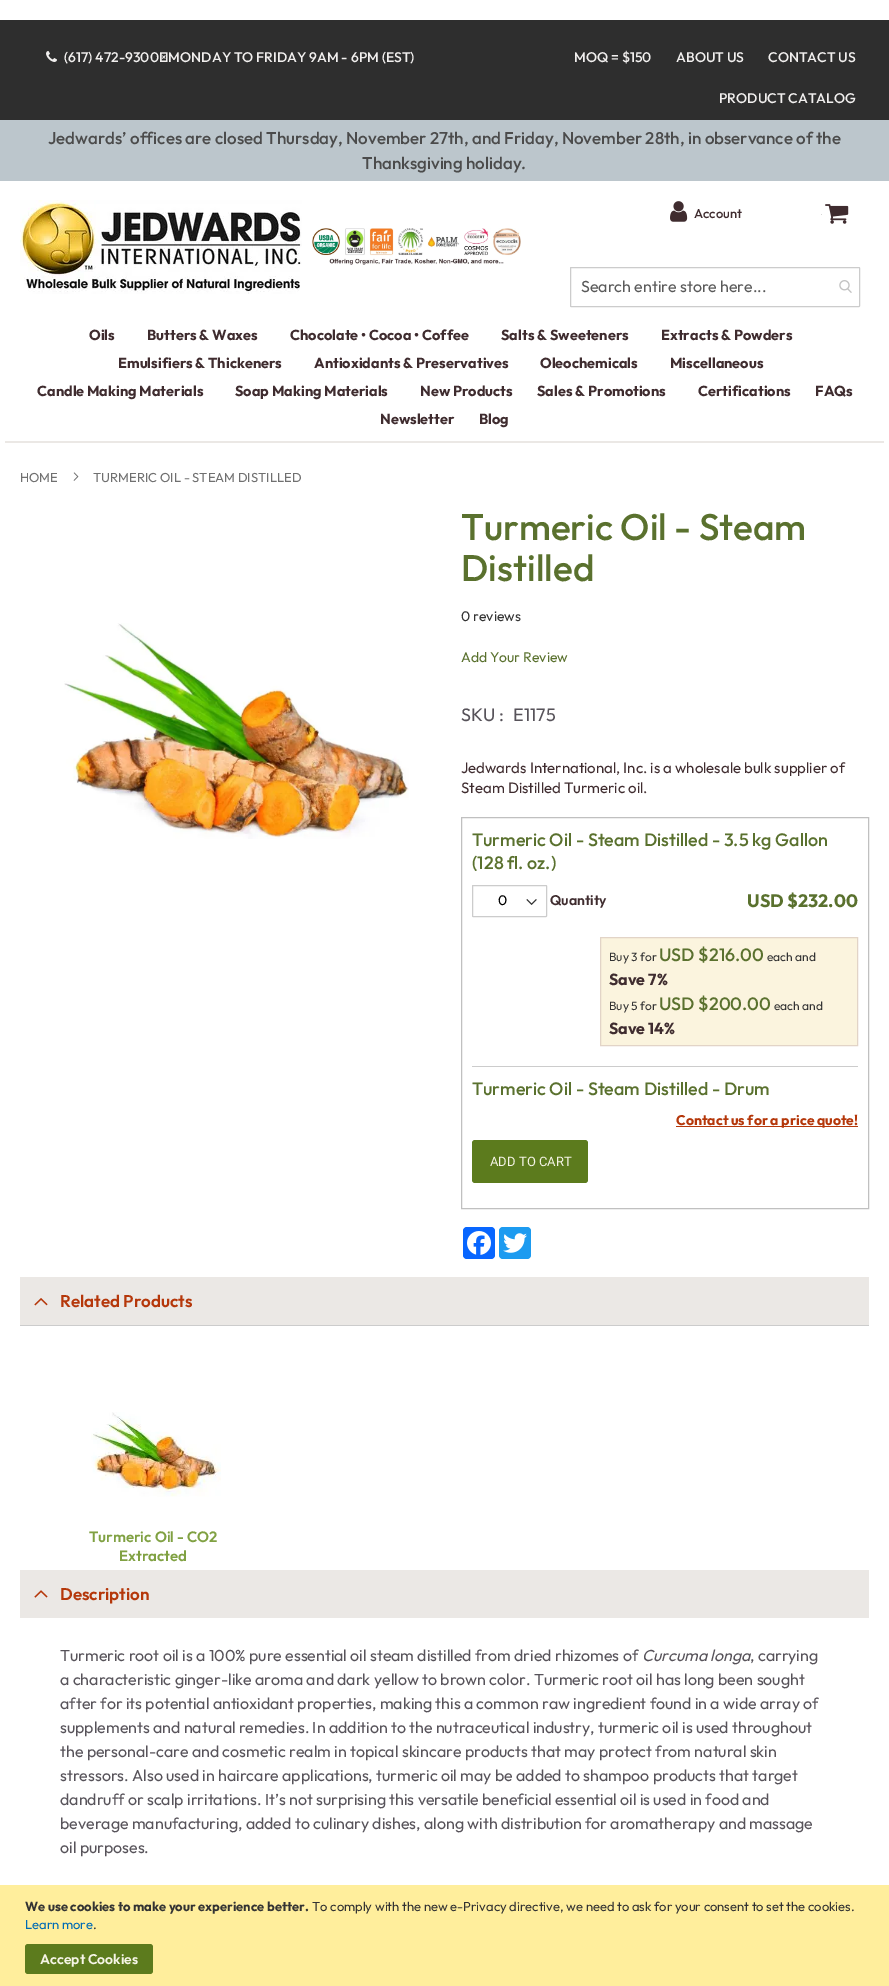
%!PS
<< /PageSize [889 1986] >> setpagedevice
/rgb { 3 { 255 div 3 1 roll } repeat setrgbcolor } def
/font { [ exch dup neg 0 0 3 -1 roll 0 0 ] selectfont } def
/roundrect { 5 dict begin { /r /h /w /y /x } { exch def } forall
  x r add y moveto x w add y 2 copy h add r arct x w add y h add x 1 index r arct
  x y h add x y r arct x y 2 copy exch w add exch r arct closepath end } def
/picture { 5 dict begin { /h /w /y /x /name } { exch def } forall
  gsave x y translate w h scale
  w h 8 [w 0 0 h 0 0] name (r) file false 3 colorimage grestore end } def
0 1986 translate 1 -1 scale
4 setmiterlimit
255 255 255 rgb
0 0 889 1986 rectfill
46 46 46 rgb
0 20 889 100 rectfill
(img/1.rgb) 46 51 11 11 picture
188 198 204 rgb
0 120 889 61 rectfill
(img/2.rgb) 20 200 282 94 picture
(img/3.rgb) 312 228 209 37 picture
(img/4.rgb) 670 201 18 21 picture
215 215 215 rgb
821 214 1 1 rectfill
(img/5.rgb) 825 204 24 20 picture
204 204 204 rgb
570.5 267.5 289 39 0.5 roundrect stroke
(img/6.rgb) 839 280 13 13 picture
235 232 229 rgb
5 441 879 2 rectfill
(img/7.rgb) 73 472 6 9 picture
(img/8.rgb) 64 623 345 216 picture
192 192 192 rgb
461.5 817.5 407 391 rectstroke
(img/9.rgb) 526 899 11 6 picture
204 204 204 rgb
472.5 885.5 74 31 0.5 roundrect stroke
251 244 222 rgb
600.5 937.5 moveto 857.5 937.5 lineto 857.5 1045.5 lineto 600.5 1045.5 lineto closepath gsave fill grestore
226 212 199 rgb
stroke
204 204 204 rgb
472 1066 386 1 rectfill
181 55 10 rgb
676 1126 182 1 rectfill
92 123 29 rgb
472 1140 116 43 3 roundrect fill
8 102 255 rgb
463 1227 32 32 4 roundrect fill
(img/10.rgb) 467 1231 24 24 picture
29 155 240 rgb
499 1227 32 32 4 roundrect fill
(img/11.rgb) 503 1233 24 20 picture
235 232 229 rgb
20 1277 849 48 rectfill
(img/12.rgb) 34 1298 14 8 picture
204 204 204 rgb
20 1325 849 1 rectfill
(img/13.rgb) 91 1412 130 85 picture
235 232 229 rgb
20 1570 849 48 rectfill
(img/14.rgb) 34 1590 14 8 picture
255 238 156 rgb
0 1885 889 101 rectfill
92 123 29 rgb
25 1944 128 30 3 roundrect fill
/Outfit-Medium 14 font
241 239 238 rgb
[
  [(\(617\) 472-9300 MONDAY TO FRIDAY 9AM - 6PM \(EST\)) 64 62]
  [(MOQ = $150) 574 62]
  [(ABOUT US) 676 62]
  [(CONTACT US) 768 62]
  [(PRODUCT CATALOG) 719 103]
] { aload pop moveto show } forall
/Outfit-Medium 17 font
75 75 75 rgb
48 144 moveto (Jedwards’ offices are closed Thursday, November 27th, and Friday, November 28th, in observance of the) show
362 169 moveto (Thanksgiving holiday.) show
/Outfit-Medium 13 font
63 44 47 rgb
694 218 moveto (Account) show
/Outfit-Regular 16 font
90 90 90 rgb
581 292 moveto (Search entire store here...) show
/Outfit-Bold 14.5 font
63 44 47 rgb
[
  [(Oils) 89 340]
  [(Butters & Waxes) 147 340]
  [(Chocolate • Cocoa • Coffee) 290 340]
  [(Salts & Sweeteners) 501 340]
  [(Extracts & Powders) 661 340]
  [(Emulsifiers & Thickeners) 118 368]
  [(Antioxidants & Preservatives) 314 368]
  [(Oleochemicals) 540 368]
  [(Miscellaneous) 670 368]
  [(Candle Making Materials) 37 396]
  [(Soap Making Materials) 235 396]
  [(New Products) 420 396]
  [(Sales & Promotions) 537 396]
  [(Certifications) 698 396]
  [(FAQs) 815 396]
  [(Newsletter) 380 424]
  [(Blog) 479 424]
] { aload pop moveto show } forall
/Outfit-Regular 13 font
112 112 112 rgb
20 482 moveto (HOME) show
93 482 moveto (TURMERIC OIL - STEAM DISTILLED) show
/Outfit-Medium 37 font
90 113 46 rgb
461 540 moveto (Turmeric Oil - Steam) show
461 581 moveto (Distilled) show
/Outfit-Regular 14 font
51 51 51 rgb
461 621 moveto (0 reviews) show
90 113 46 rgb
461 662 moveto (Add Your Review) show
/Outfit-Regular 18 font
87 83 90 rgb
461 721 moveto (SKU :) show
513 721 moveto (E1175) show
/Outfit-Regular 15 font
63 44 47 rgb
461 773 moveto (Jedwards International, Inc. is a wholesale bulk supplier of) show
461 793 moveto (Steam Distilled Turmeric oil.) show
/Outfit-Medium 18 font
90 113 46 rgb
472 846 moveto (Turmeric Oil - Steam Distilled - 3.5 kg Gallon) show
472 869 moveto (\(128 fl. oz.\)) show
/Outfit-Regular 14 font
0 0 0 rgb
498 905 moveto (0) show
/Outfit-SemiBold 14 font
63 44 47 rgb
550 905 moveto (Quantity) show
/Outfit-Bold 18 font
90 113 46 rgb
747 907 moveto (USD $232.00) show
/Outfit-Regular 12 font
51 51 51 rgb
609 961 moveto (Buy 3 for) show
/Outfit-Medium 18 font
90 113 46 rgb
659 961 moveto (USD $216.00) show
/Outfit-Regular 12 font
51 51 51 rgb
767 961 moveto (each and) show
/Outfit-Bold 16 font
63 44 47 rgb
609 985 moveto (Save 7%) show
/Outfit-Regular 12 font
51 51 51 rgb
609 1010 moveto (Buy 5 for) show
/Outfit-Medium 18 font
90 113 46 rgb
659 1010 moveto (USD $200.00) show
/Outfit-Regular 12 font
51 51 51 rgb
774 1010 moveto (each and) show
/Outfit-Bold 16 font
63 44 47 rgb
609 1034 moveto (Save 14%) show
/Outfit-Medium 18 font
90 113 46 rgb
472 1095 moveto (Turmeric Oil - Steam Distilled - Drum) show
/Outfit-Bold 14 font
181 55 10 rgb
676 1125 moveto (Contact us for a price quote!) show
/Roboto-Regular 13 font
246 245 231 rgb
490 1166 moveto (ADD TO CART) show
/Outfit-SemiBold 17 font
181 55 10 rgb
60 1307 moveto (Related Products) show
/Outfit-SemiBold 15 font
128 161 66 rgb
89 1542 moveto (Turmeric Oil - CO2) show
119 1561 moveto (Extracted) show
/Outfit-SemiBold 17 font
181 55 10 rgb
60 1600 moveto (Description) show
/Outfit-Regular 16 font
87 83 90 rgb
60 1661 moveto (Turmeric root oil is a 100% pure essential oil steam distilled from dried rhizomes of) show
/Outfit-Italic 16 font
642 1661 moveto (Curcuma longa) show
/Outfit-Regular 16 font
[
  [(, carrying) 750 1661]
  [(a characteristic ginger-like aroma and dark yellow to brown color. Turmeric root oil has long been sought) 60 1685]
  [(after for its potential antioxidant properties, making this a common raw ingredient found in a wide array of) 60 1709]
  [(supplements and natural remedies. In addition to the nutraceutical industry, turmeric oil is used throughout) 60 1733]
  [(the personal-care and cosmetic realm in topical skincare products that may protect from natural skin) 60 1757]
  [(stressors. Also used in haircare applications, turmeric oil may be added to shampoo products that target) 60 1781]
  [(dandruff or scalp irritations. It’s not surprising this versatile beneficial essential oil is used in food and) 60 1805]
  [(beverage manufacturing, added to culinary dishes, along with distribution for aromatherapy and massage) 60 1829]
  [(oil purposes.) 60 1853]
] { aload pop moveto show } forall
/Outfit-Bold 13 font
51 51 51 rgb
25 1911 moveto (We use cookies to make your experience better.) show
/Outfit-Regular 13 font
312 1911 moveto (To comply with the new e-Privacy directive, we need to ask for your consent to set the cookies.) show
0 107 180 rgb
25 1929 moveto (Learn more) show
51 51 51 rgb
93 1929 moveto (.) show
/Outfit-SemiBold 14 font
246 245 231 rgb
40 1964 moveto (Accept Cookies) show
showpage
